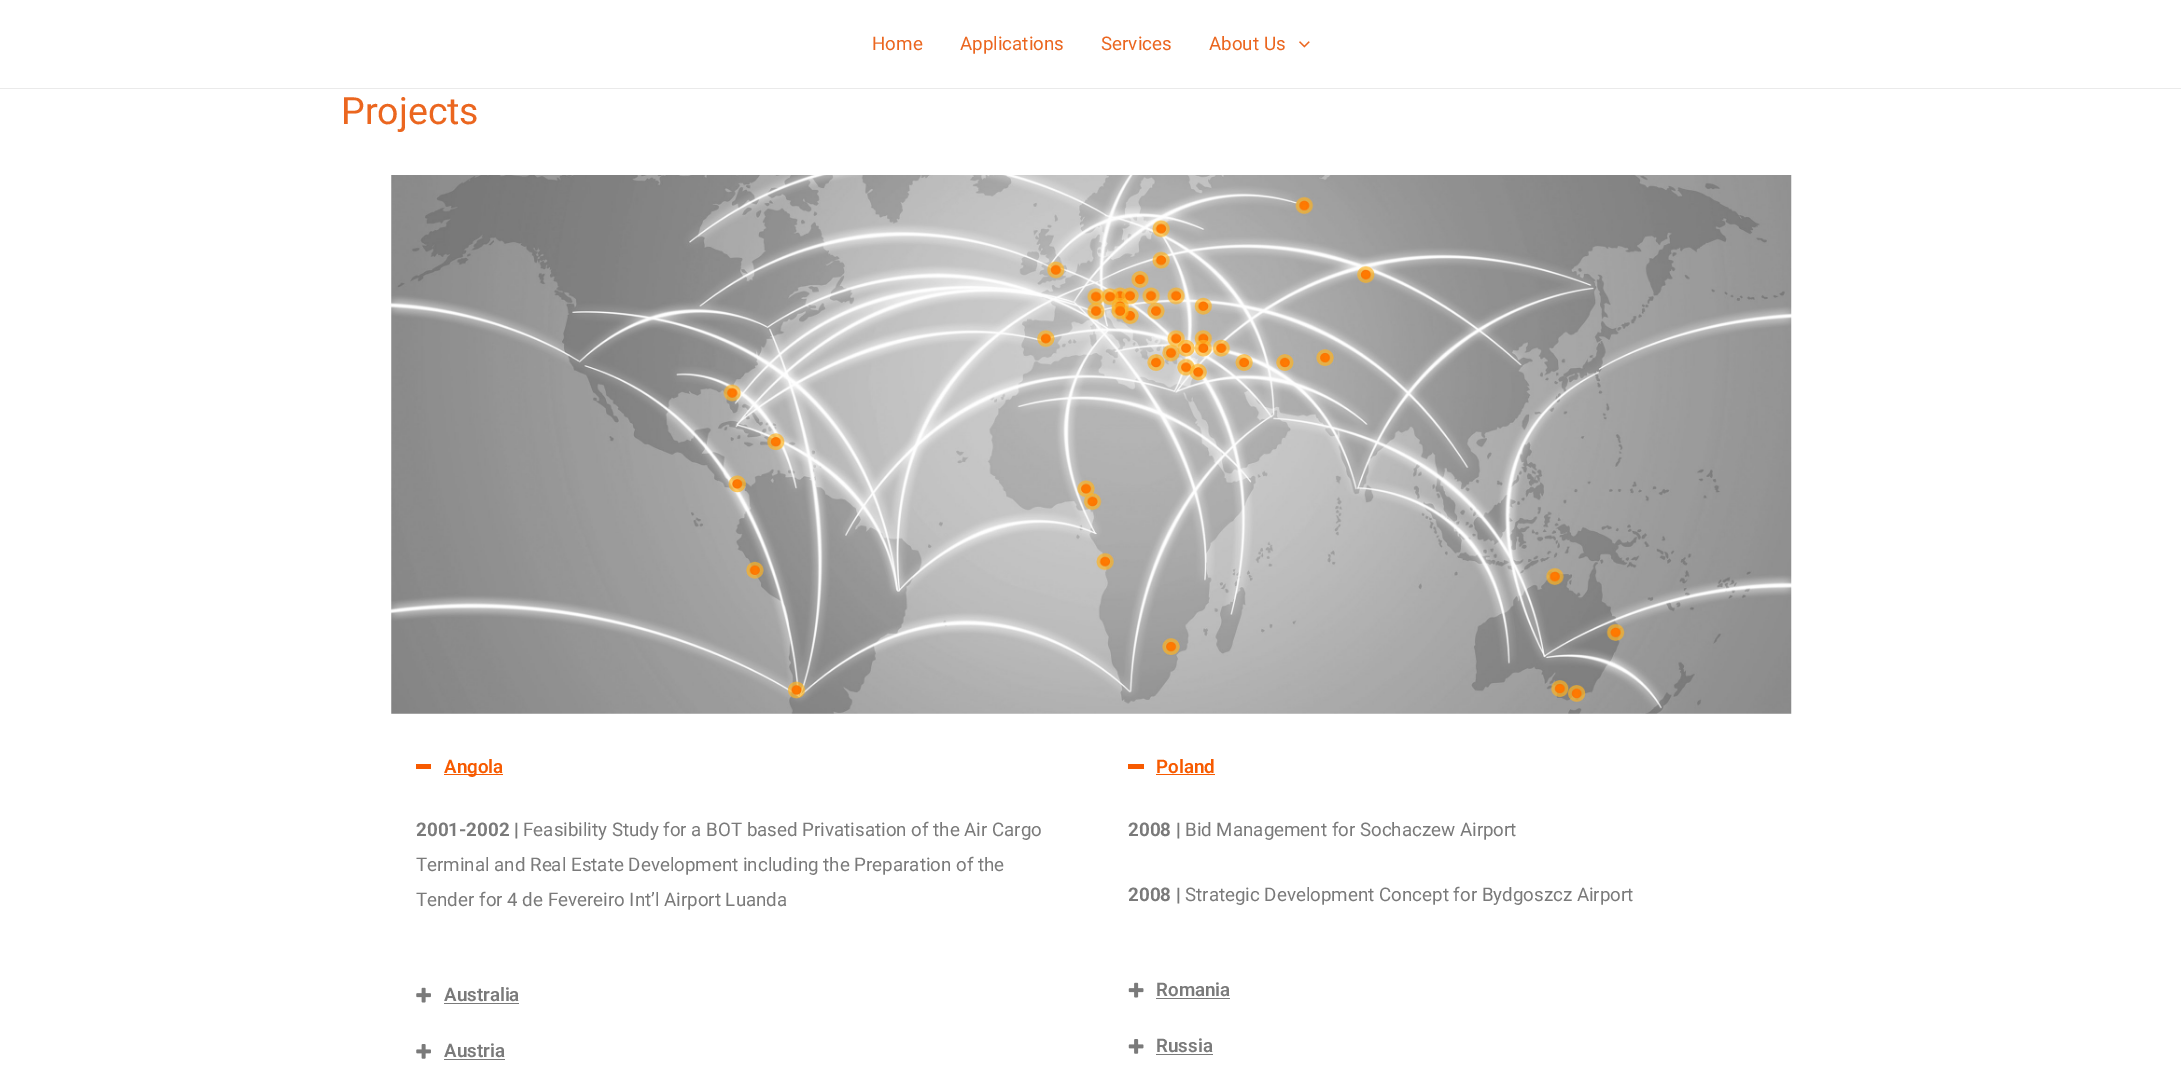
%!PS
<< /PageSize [2181 1083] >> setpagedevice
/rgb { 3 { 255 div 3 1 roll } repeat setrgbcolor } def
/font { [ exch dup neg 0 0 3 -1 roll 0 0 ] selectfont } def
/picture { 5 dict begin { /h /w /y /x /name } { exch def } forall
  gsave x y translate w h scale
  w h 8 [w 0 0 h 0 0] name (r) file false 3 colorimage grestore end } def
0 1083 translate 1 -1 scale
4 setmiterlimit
255 255 255 rgb
0 0 2181 1083 rectfill
234 234 234 rgb
0 88 2181 1 rectfill
(img/1.rgb) 1299 41 11 7 picture
(img/2.rgb) 391 175 1401 539 picture
247 90 0 rgb
416 764 15 5 rectfill
444 774 59 1 rectfill
(img/3.rgb) 416 987 15 16 picture
122 122 122 rgb
444 1003 75 1 rectfill
(img/4.rgb) 416 1044 15 15 picture
[
  [444 1059 61 1 122 122 122]
  [1128 764 16 5 247 90 0]
  [1156 774 59 1 247 90 0]
] { aload pop rgb rectfill } forall
(img/5.rgb) 1128 982 16 16 picture
122 122 122 rgb
1156 998 74 1 rectfill
(img/6.rgb) 1128 1039 16 15 picture
1156 1054 57 1 rectfill
/Roboto-Regular 18.75 font
235 102 31 rgb
[
  [(Home) 872 50]
  [(Applications) 960 50]
  [(Services) 1101 50]
  [(About Us) 1209 50]
] { aload pop moveto show } forall
/Roboto-Regular 37.5 font
341 124 moveto (Projects) show
/Roboto-SemiBold 18.75 font
247 90 0 rgb
444 773 moveto (Angola) show
/Roboto-Bold 18.75 font
122 122 122 rgb
416 836 moveto (2001-2002 |) show
/Roboto-Regular 18.75 font
[
  [(Feasibility Study for a BOT based Privatisation of the Air Cargo) 523 836]
  [(Terminal and Real Estate Development including the Preparation of the) 416 871]
  [(Tender for 4 de Fevereiro Int’l Airport Luanda) 416 906]
] { aload pop moveto show } forall
/Roboto-SemiBold 18.75 font
444 1001 moveto (Australia) show
444 1057 moveto (Austria) show
247 90 0 rgb
1156 773 moveto (Poland) show
/Roboto-Bold 18.75 font
122 122 122 rgb
1128 836 moveto (2008 |) show
/Roboto-Regular 18.75 font
1185 836 moveto (Bid Management for Sochaczew Airport) show
/Roboto-Bold 18.75 font
1128 901 moveto (2008 |) show
/Roboto-Regular 18.75 font
1185 901 moveto (Strategic Development Concept for Bydgoszcz Airport) show
/Roboto-SemiBold 18.75 font
1156 996 moveto (Romania) show
1156 1052 moveto (Russia) show
showpage
